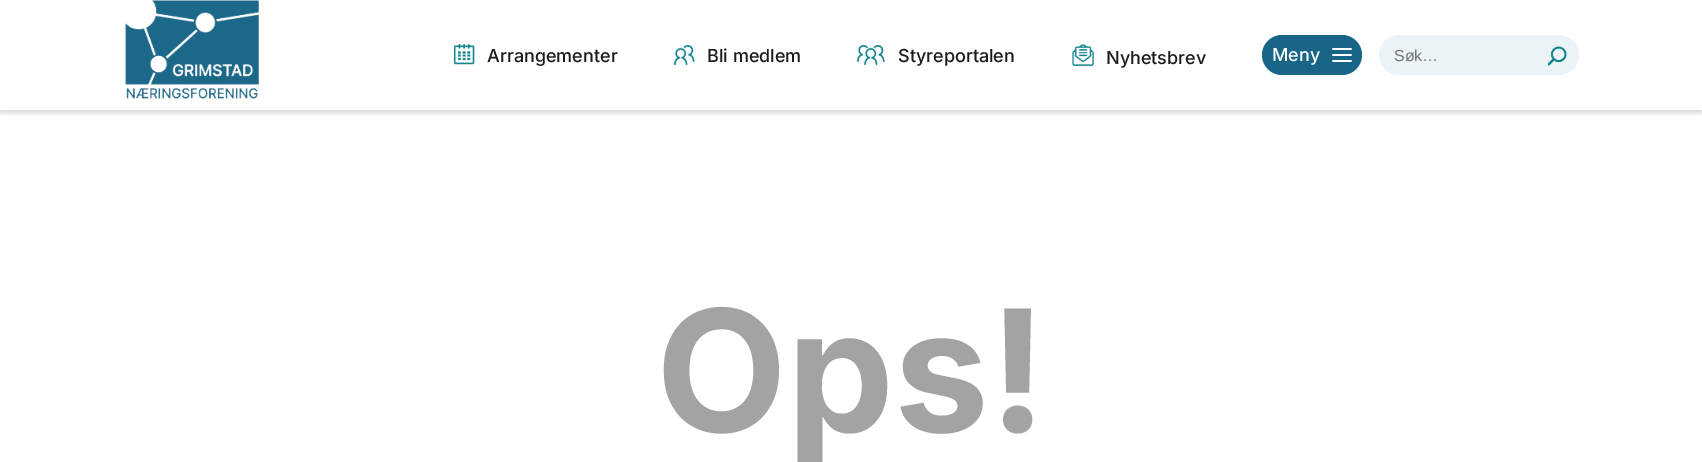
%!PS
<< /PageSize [1702 462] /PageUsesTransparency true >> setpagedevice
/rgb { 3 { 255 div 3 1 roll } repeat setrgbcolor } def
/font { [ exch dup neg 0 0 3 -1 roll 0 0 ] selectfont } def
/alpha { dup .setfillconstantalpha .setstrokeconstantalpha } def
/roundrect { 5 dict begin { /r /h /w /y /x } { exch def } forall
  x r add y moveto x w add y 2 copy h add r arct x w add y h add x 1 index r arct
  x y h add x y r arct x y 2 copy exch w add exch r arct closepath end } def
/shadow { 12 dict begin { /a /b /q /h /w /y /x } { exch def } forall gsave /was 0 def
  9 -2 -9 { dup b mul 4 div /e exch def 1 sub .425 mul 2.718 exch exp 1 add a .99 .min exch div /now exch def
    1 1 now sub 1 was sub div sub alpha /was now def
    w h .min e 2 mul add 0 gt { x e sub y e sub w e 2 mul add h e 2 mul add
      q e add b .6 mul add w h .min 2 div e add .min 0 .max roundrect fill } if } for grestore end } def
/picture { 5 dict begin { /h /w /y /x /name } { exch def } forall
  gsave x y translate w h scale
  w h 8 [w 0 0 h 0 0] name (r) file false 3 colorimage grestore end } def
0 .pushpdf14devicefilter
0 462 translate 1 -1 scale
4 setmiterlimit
255 255 255 rgb
0 0 1702 462 rectfill
gsave
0 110 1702 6 rectclip
0 0 0 rgb
0 3 1702 110 0 3 0.16 shadow
grestore
(img/1.rgb) 125 0 134 99 picture
(img/2.rgb) 454 44 21 21 picture
(img/3.rgb) 673 45 22 20 picture
(img/4.rgb) 856 45 29 20 picture
(img/5.rgb) 1072 44 22 23 picture
24 101 136 rgb
1262 35 100 40 20 roundrect fill
(img/6.rgb) 1332 48 20 14 picture
236 243 246 rgb
1379 35 200 40 20 roundrect fill
(img/7.rgb) 1548 46 19 20 picture
/Inter-Medium 18 font
28 28 29 rgb
[
  [(Arrangementer) 487 62]
  [(Bli medlem) 707 62]
  [(Styreportalen) 898 62]
  [(Nyhetsbrev) 1106 64]
] { aload pop moveto show } forall
255 255 255 rgb
1272 61 moveto (Meny) show
/LiberationSans-Regular 16 font
117 117 117 rgb
1394 61 moveto (Søk…) show
/Inter-Bold 170 font
163 163 164 rgb
656 432 moveto (Ops!) show
.poppdf14devicefilter showpage
